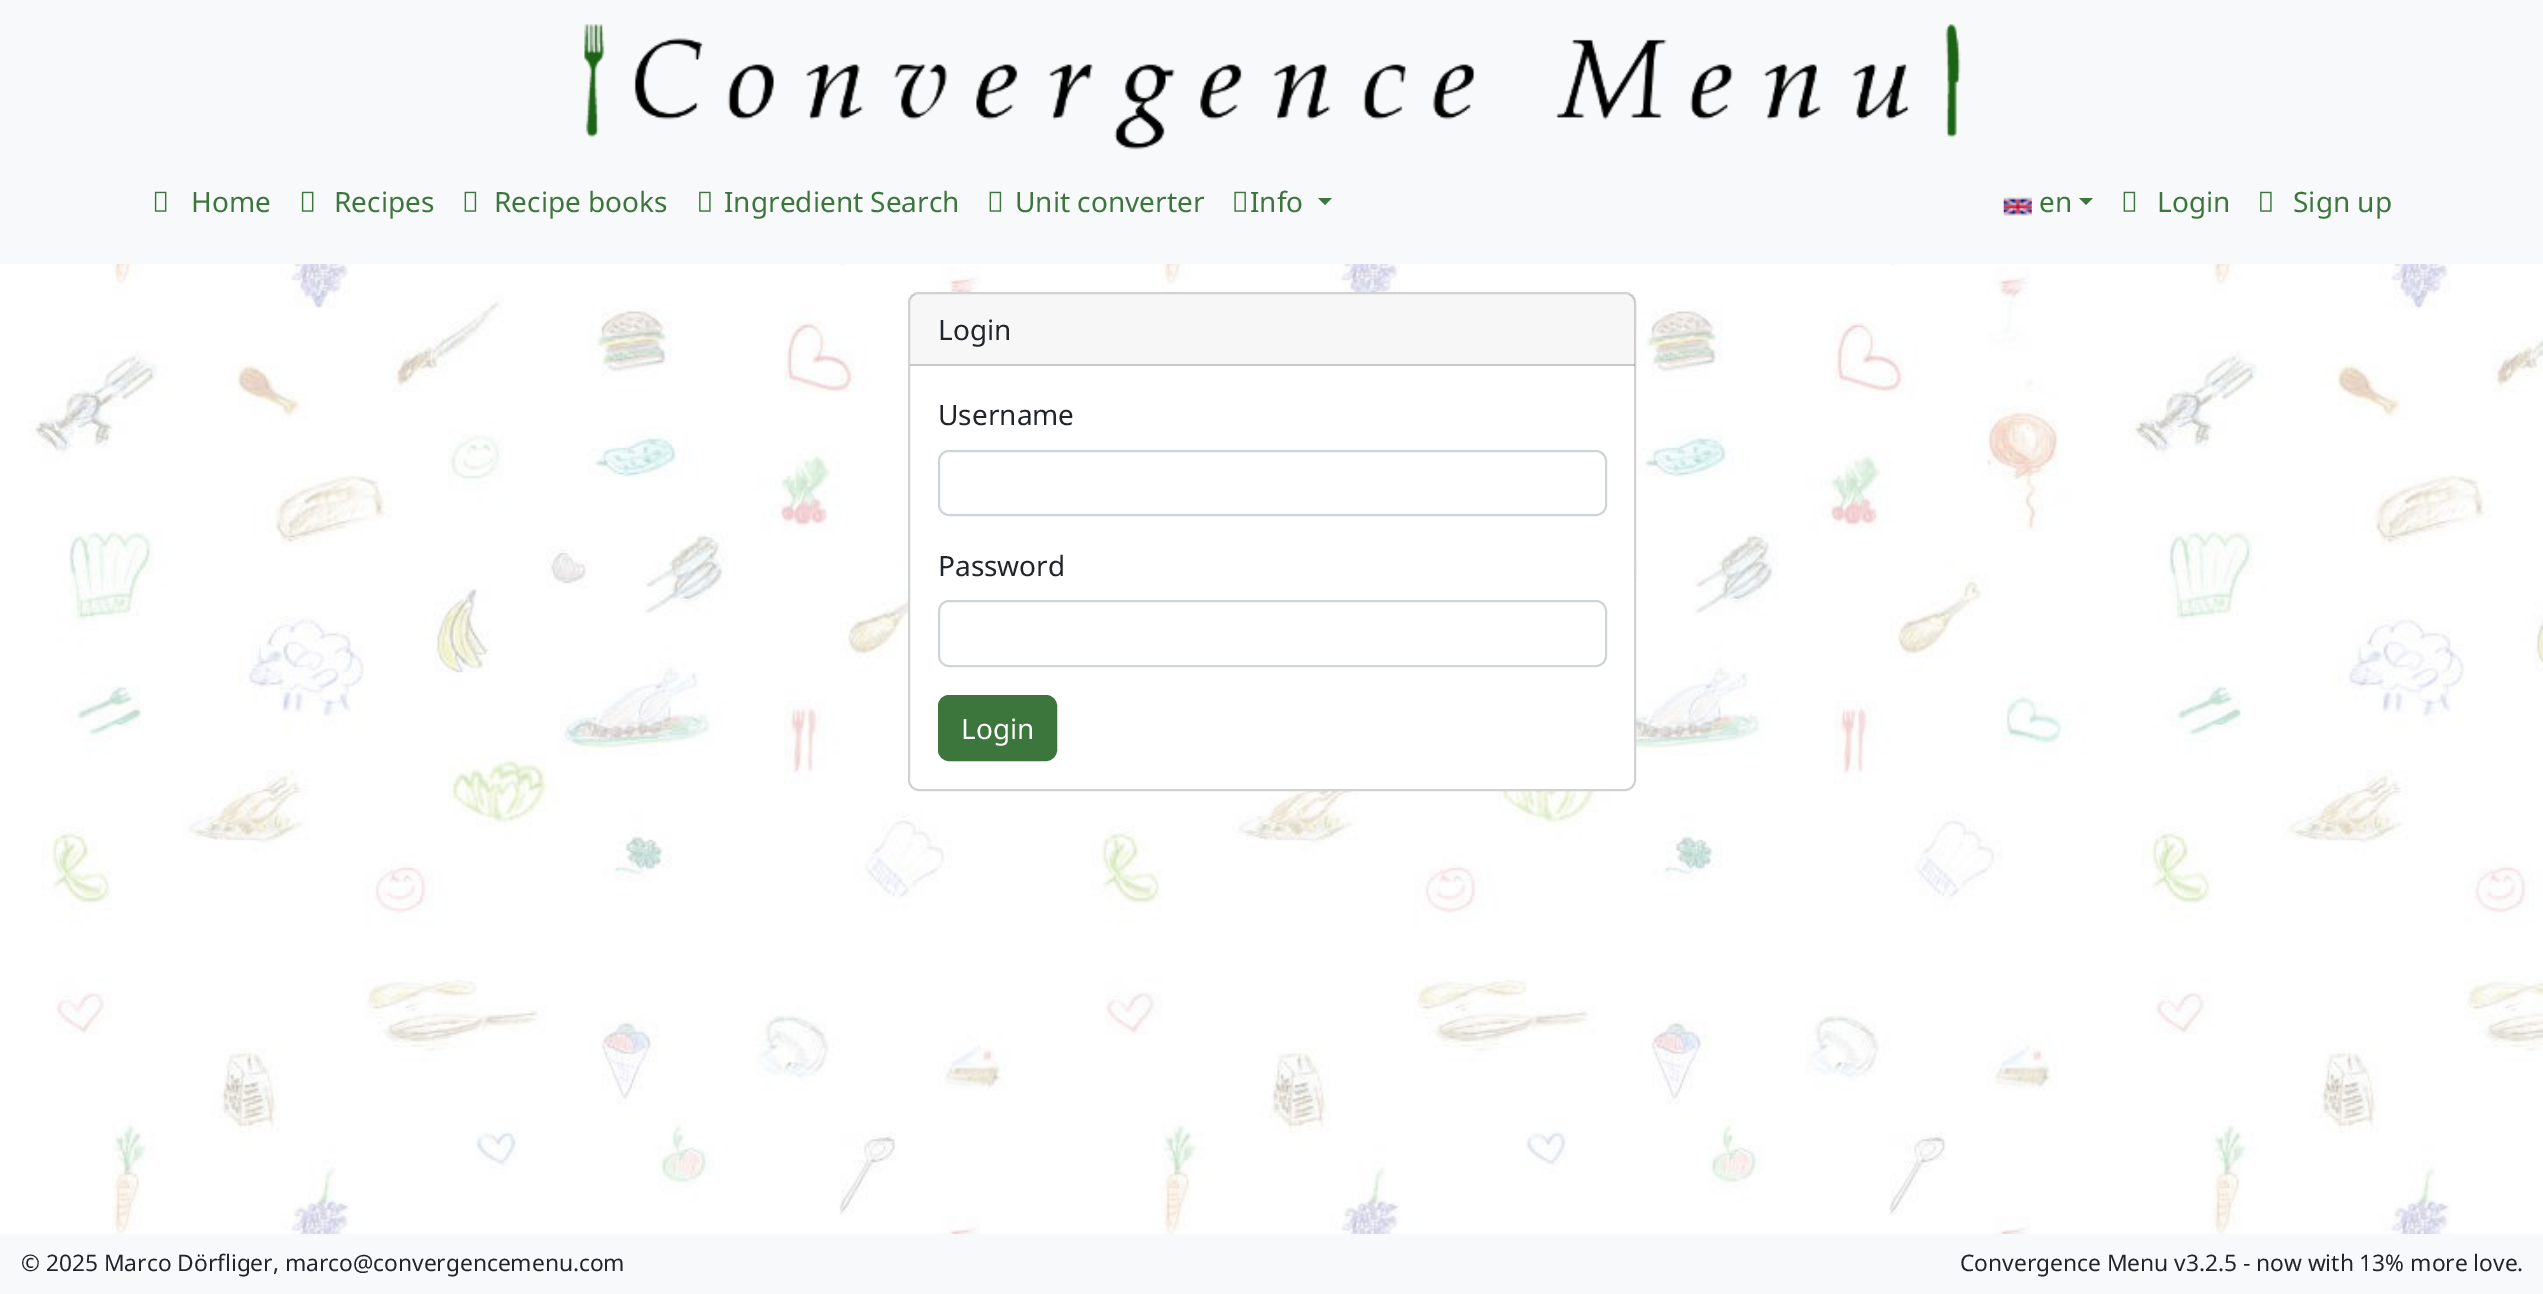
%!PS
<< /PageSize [2543 1294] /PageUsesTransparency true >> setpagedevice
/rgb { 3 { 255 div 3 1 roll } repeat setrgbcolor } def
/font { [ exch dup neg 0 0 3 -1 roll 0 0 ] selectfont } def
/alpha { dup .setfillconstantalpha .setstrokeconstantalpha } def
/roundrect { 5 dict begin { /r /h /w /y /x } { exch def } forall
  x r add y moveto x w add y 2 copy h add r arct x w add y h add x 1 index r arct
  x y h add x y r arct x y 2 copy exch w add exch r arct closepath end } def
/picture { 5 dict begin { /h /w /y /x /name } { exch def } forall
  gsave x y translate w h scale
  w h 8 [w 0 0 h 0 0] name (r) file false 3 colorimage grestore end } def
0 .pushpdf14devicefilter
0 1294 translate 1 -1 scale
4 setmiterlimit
255 255 255 rgb
0 0 2543 1294 rectfill
(img/1.rgb) 28 264 2515 970 picture
248 249 250 rgb
0 0 2543 264 rectfill
(img/2.rgb) 584 24 1377 126 picture
(img/3.rgb) 154 191 13 21 picture
(img/3.rgb) 301 191 13 21 picture
(img/4.rgb) 464 191 13 21 picture
(img/5.rgb) 699 191 12 21 picture
(img/4.rgb) 989 191 13 21 picture
(img/6.rgb) 1234 191 12 21 picture
60 118 61 rgb
1318 198 moveto 1332 198 lineto 1325 205 lineto closepath fill
(img/7.rgb) 2003 197 29 19 picture
2079 198 moveto 2093 198 lineto 2086 205 lineto closepath fill
(img/4.rgb) 2123 191 13 21 picture
(img/5.rgb) 2260 191 12 21 picture
255 255 255 rgb
909 293 726 497 10 roundrect gsave fill grestore
210 210 210 rgb
2 setlinewidth
stroke
0.03 alpha
0 0 0 rgb
910 294 725 72 rectfill
0.18 alpha
910 364 725 2 rectfill
1 alpha
206 212 218 rgb
939 451 667 64 10 roundrect stroke
939 601 667 65 10 roundrect stroke
60 118 61 rgb
939 696 117 64 10 roundrect gsave fill grestore
stroke
248 249 250 rgb
0 1234 2543 60 rectfill
/NotoSans-Regular 28 font
60 118 61 rgb
[
  [(Home) 191 212]
  [(Recipes) 334 212]
  [(Recipe books) 494 212]
  [(Ingredient Search) 724 212]
  [(Unit converter) 1015 212]
  [(Info) 1250 212]
  [(en) 2039 212]
  [(Login) 2157 212]
  [(Sign up) 2293 212]
] { aload pop moveto show } forall
33 37 41 rgb
[
  [(Login) 938 340]
  [(Username) 938 425]
  [(Password) 938 576]
] { aload pop moveto show } forall
255 255 255 rgb
961 739 moveto (Login) show
/NotoSans-Regular 22.75 font
33 37 41 rgb
21 1271 moveto (© 2025 Marco Dörfliger, marco@convergencemenu.com) show
1960 1271 moveto (Convergence Menu v3.2.5 - now with 13% more love.) show
.poppdf14devicefilter showpage
